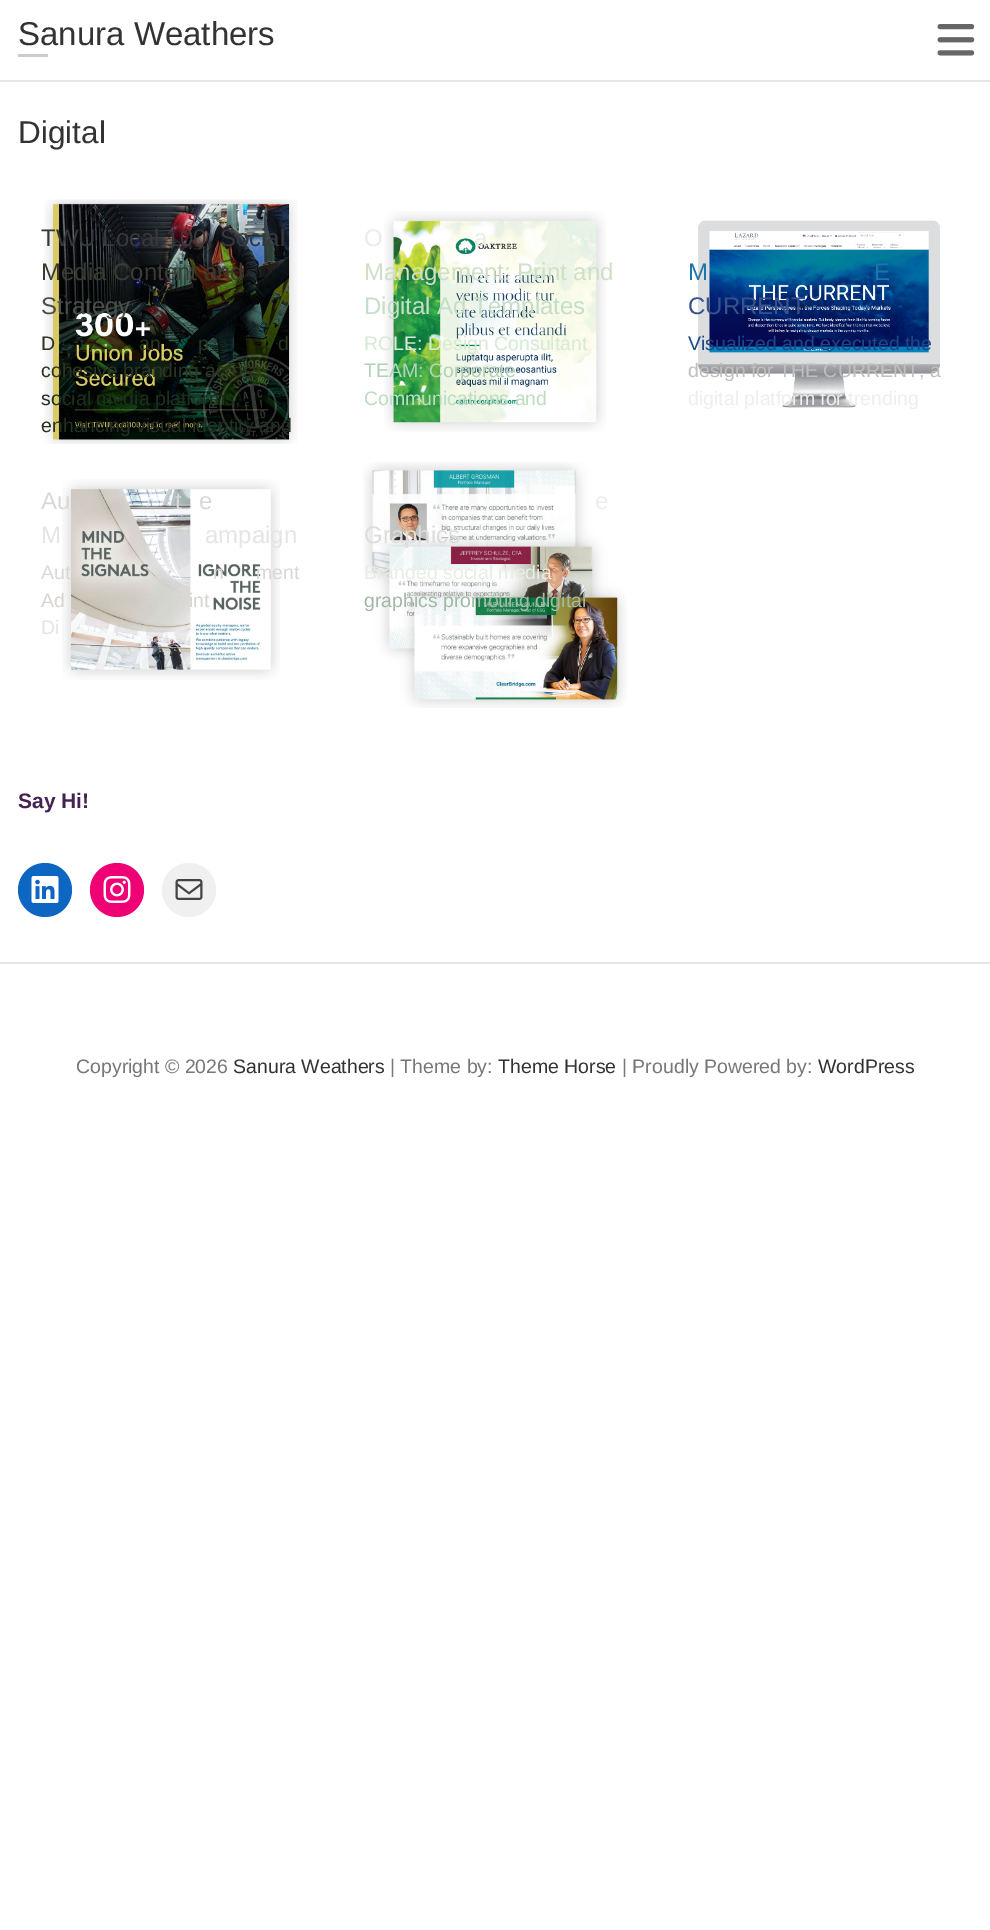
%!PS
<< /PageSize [990 1930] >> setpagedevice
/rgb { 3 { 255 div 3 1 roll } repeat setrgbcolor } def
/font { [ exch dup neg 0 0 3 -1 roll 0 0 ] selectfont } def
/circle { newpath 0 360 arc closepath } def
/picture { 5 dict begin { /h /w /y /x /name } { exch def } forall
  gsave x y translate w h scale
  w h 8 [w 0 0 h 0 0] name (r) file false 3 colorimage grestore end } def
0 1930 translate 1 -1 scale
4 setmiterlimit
255 255 255 rgb
0 0 990 1930 rectfill
204 204 204 rgb
18 54 30 3 rectfill
(img/1.rgb) 937 24 38 32 picture
230 230 230 rgb
0 80 990 2 rectfill
(img/2.rgb) 44 199 254 245 picture
(img/3.rgb) 384 211 222 221 picture
(img/4.rgb) 698 220 242 188 picture
(img/5.rgb) 62 479 218 201 picture
(img/6.rgb) 363 462 264 246 picture
13 102 194 rgb
45 890 27 circle fill
(img/7.rgb) 31 876 28 27 picture
240 0 117 rgb
117 890 27 circle fill
(img/8.rgb) 103 876 28 27 picture
240 240 240 rgb
189 890 27 circle fill
(img/9.rgb) 175 879 28 21 picture
230 230 230 rgb
0 962 990 2 rectfill
/LiberationSans-Regular 33 font
51 51 51 rgb
18 45 moveto (Sanura Weathers) show
/LiberationSans-Regular 31.5 font
18 143 moveto (Digital) show
/LiberationSans-Regular 24 font
56 56 60 rgb
41 246 moveto (TWU Local 100: Social) show
59 59 49 rgb
41 280 moveto (Media Content and) show
76 79 73 rgb
41 314 moveto (Strategy) show
/LiberationSans-Regular 19.5 font
44 53 34 rgb
[
  [(D) 41 350]
  [(an) 139 350]
  [(p) 198 350]
  [(d) 278 350]
  [(cohesive branding across) 41 377]
] { aload pop moveto show } forall
31 47 31 rgb
41 405 moveto (social media platforms,) show
39 46 34 rgb
41 432 moveto (enhancing visual identity and) show
/LiberationSans-Regular 24 font
232 238 229 rgb
364 246 moveto (O) show
474 246 moveto (a) show
207 224 199 rgb
364 280 moveto (Management: Print and) show
196 222 200 rgb
364 314 moveto (Digital Ad Templates) show
/LiberationSans-Regular 19.5 font
216 234 214 rgb
364 350 moveto (ROLE: Design Consultant) show
177 210 183 rgb
364 377 moveto (TEAM: Corporate) show
188 221 193 rgb
364 405 moveto (Communications and) show
/LiberationSans-Regular 24 font
29 118 167 rgb
688 280 moveto (M) show
874 280 moveto (E) show
57 82 140 rgb
688 314 moveto (CURRENT) show
/LiberationSans-Regular 19.5 font
29 71 132 rgb
688 350 moveto (Visualized and executed the) show
191 191 193 rgb
688 377 moveto (design for THE CURRENT, a) show
237 238 238 rgb
688 405 moveto (digital platform for trending) show
/LiberationSans-Regular 24 font
216 217 215 rgb
[
  [(Au) 41 509]
  [(t) 175 509]
  [(e) 199 509]
] { aload pop moveto show } forall
229 229 228 rgb
41 543 moveto (M) show
205 543 moveto (ampaign) show
/LiberationSans-Regular 19.5 font
216 217 215 rgb
[
  [(Aut) 41 579]
  [(n) 213 579]
  [(ment) 256 579]
] { aload pop moveto show } forall
215 213 208 rgb
41 607 moveto (Ad) show
189 607 moveto (int) show
229 229 228 rgb
41 634 moveto (Di) show
/LiberationSans-Regular 24 font
237 238 238 rgb
595 509 moveto (e) show
222 221 219 rgb
364 543 moveto (Graphics) show
/LiberationSans-Regular 19.5 font
232 238 229 rgb
364 579 moveto (Branded social media) show
162 186 165 rgb
364 607 moveto (graphics promoting digital) show
/LiberationSans-Bold 21 font
69 34 83 rgb
18 808 moveto (Say Hi!) show
/LiberationSans-Regular 19.5 font
119 119 119 rgb
76 1073 moveto (Copyright © 2026) show
51 51 51 rgb
233 1073 moveto (Sanura Weathers) show
119 119 119 rgb
390 1073 moveto (| Theme by:) show
51 51 51 rgb
498 1073 moveto (Theme Horse) show
119 119 119 rgb
622 1073 moveto (| Proudly Powered by:) show
51 51 51 rgb
818 1073 moveto (WordPress) show
showpage
